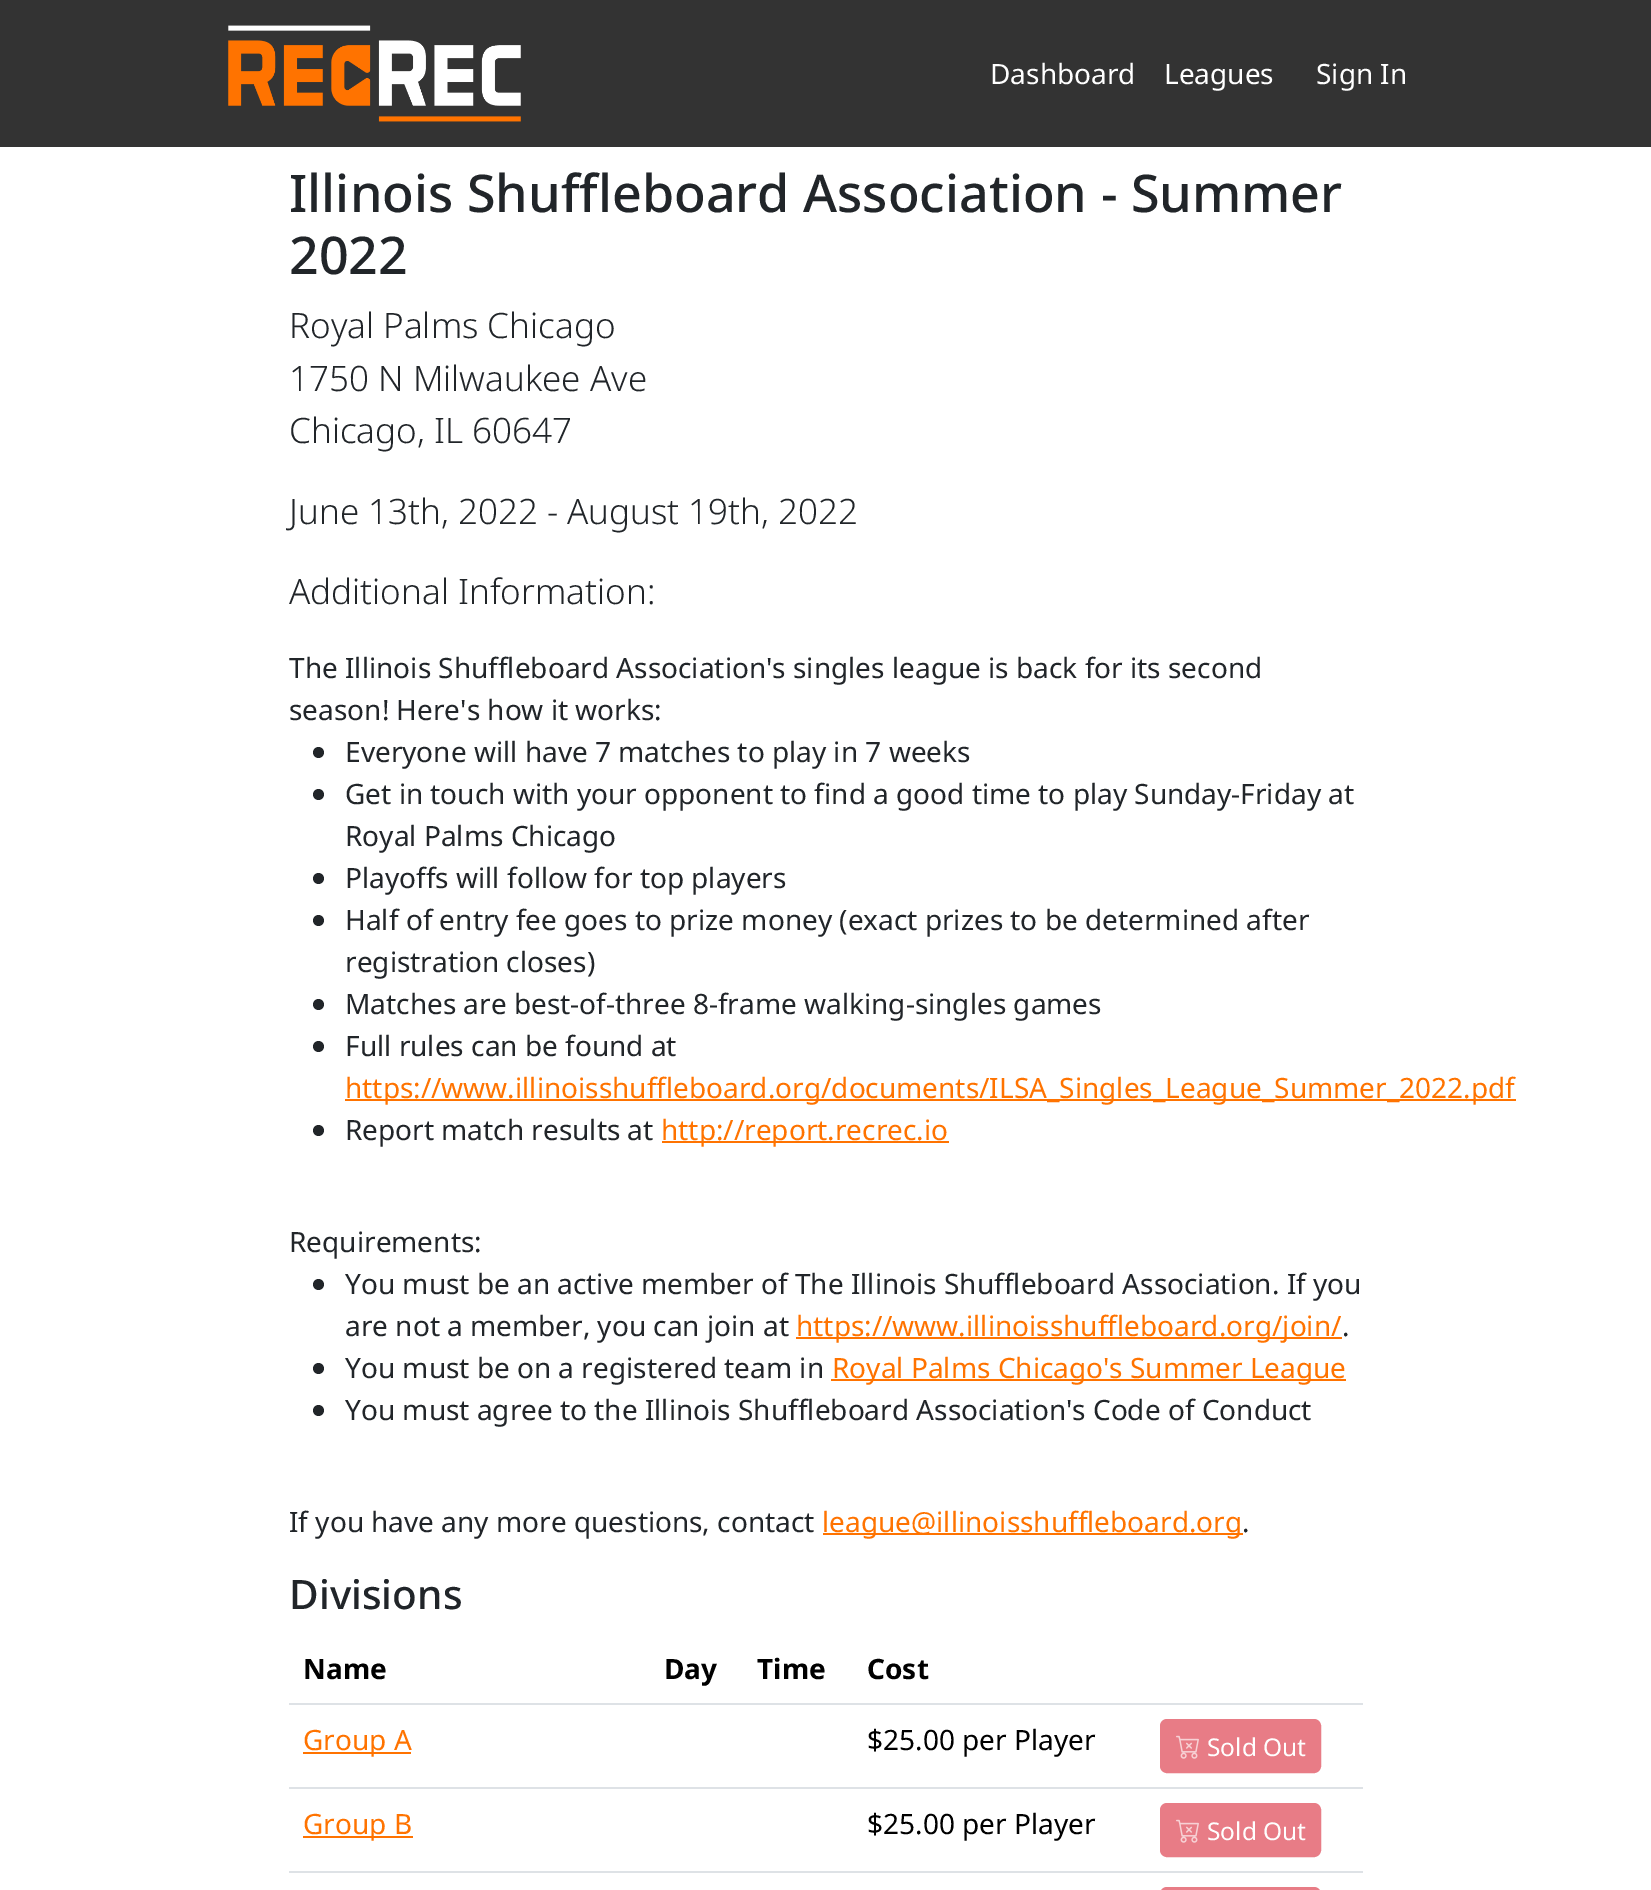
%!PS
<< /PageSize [1651 1890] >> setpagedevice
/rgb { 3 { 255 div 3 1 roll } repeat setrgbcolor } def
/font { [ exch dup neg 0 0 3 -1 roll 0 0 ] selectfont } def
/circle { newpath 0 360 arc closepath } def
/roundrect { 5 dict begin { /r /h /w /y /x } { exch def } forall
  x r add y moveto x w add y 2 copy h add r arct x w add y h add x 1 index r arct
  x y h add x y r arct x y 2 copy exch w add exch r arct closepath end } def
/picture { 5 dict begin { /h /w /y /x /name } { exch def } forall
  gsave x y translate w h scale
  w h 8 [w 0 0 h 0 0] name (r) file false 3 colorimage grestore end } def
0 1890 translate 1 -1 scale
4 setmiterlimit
255 255 255 rgb
0 0 1651 1890 rectfill
51 51 51 rgb
0 0 1651 147 rectfill
(img/1.rgb) 228 25 293 97 picture
33 37 41 rgb
318.5 752.5 5.5 circle fill
318.5 794.5 5.5 circle fill
318.5 878.5 5.5 circle fill
318.5 920.5 5.5 circle fill
318.5 1004.5 5.5 circle fill
318.5 1046.5 5.5 circle fill
255 115 0 rgb
345 1099 1171 2 rectfill
33 37 41 rgb
318.5 1130.5 5.5 circle fill
255 115 0 rgb
662 1141 287 2 rectfill
33 37 41 rgb
318.5 1284.5 5.5 circle fill
255 115 0 rgb
796 1337 546 2 rectfill
33 37 41 rgb
318.5 1368.5 5.5 circle fill
255 115 0 rgb
831 1379 515 2 rectfill
33 37 41 rgb
318.5 1410.5 5.5 circle fill
[
  [823 1533 420 2 255 115 0]
  [289 1703 1074 2 222 226 230]
  [303 1752 108 2 255 115 0]
  [289 1787 1074 2 222 226 230]
] { aload pop rgb rectfill } forall
232 124 134 rgb
1161 1720 159 52 6 roundrect gsave fill grestore
2 setlinewidth
stroke
(img/2.rgb) 1176 1735 23 24 picture
255 115 0 rgb
303 1836 110 2 rectfill
222 226 230 rgb
289 1871 1074 2 rectfill
232 124 134 rgb
1161 1804 159 52 6 roundrect gsave fill grestore
stroke
(img/2.rgb) 1176 1819 23 24 picture
1161 1888 159 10 6 roundrect gsave fill grestore
stroke
/NotoSans-Regular 28 font
255 255 255 rgb
[
  [(Dashboard) 990 84]
  [(Leagues) 1164 84]
  [(Sign In) 1316 84]
] { aload pop moveto show } forall
/NotoSans-Medium 52 font
33 37 41 rgb
289 212 moveto (Illinois Shuffleboard Association - Summer) show
289 274 moveto (2022) show
/NotoSans-Light 35 font
[
  [(Royal Palms Chicago) 289 338]
  [(1750 N Milwaukee Ave) 289 391]
  [(Chicago, IL 60647) 289 443]
  [(June 13th, 2022 - August 19th, 2022) 289 524]
  [(Additional Information:) 289 604]
] { aload pop moveto show } forall
/NotoSans-Regular 28 font
[
  [(The Illinois Shuffleboard Association's singles league is back for its second) 289 678]
  [(season! Here's how it works:) 289 720]
  [(Everyone will have 7 matches to play in 7 weeks) 345 762]
  [(Get in touch with your opponent to find a good time to play Sunday-Friday at) 345 804]
  [(Royal Palms Chicago) 345 846]
  [(Playoffs will follow for top players) 345 888]
  [(Half of entry fee goes to prize money \(exact prizes to be determined after) 345 930]
  [(registration closes\)) 345 972]
  [(Matches are best-of-three 8-frame walking-singles games) 345 1014]
  [(Full rules can be found at) 345 1056]
] { aload pop moveto show } forall
255 115 0 rgb
345 1098 moveto (https://www.illinoisshuffleboard.org/documents/ILSA_Singles_League_Summer_2022.pdf) show
33 37 41 rgb
345 1140 moveto (Report match results at) show
255 115 0 rgb
661 1140 moveto (http://report.recrec.io) show
33 37 41 rgb
[
  [(Requirements:) 289 1252]
  [(You must be an active member of The Illinois Shuffleboard Association. If you) 345 1294]
  [(are not a member, you can join at) 345 1336]
] { aload pop moveto show } forall
255 115 0 rgb
796 1336 moveto (https://www.illinoisshuffleboard.org/join/) show
33 37 41 rgb
1342 1336 moveto (.) show
345 1378 moveto (You must be on a registered team in) show
255 115 0 rgb
832 1378 moveto (Royal Palms Chicago's Summer League) show
33 37 41 rgb
345 1420 moveto (You must agree to the Illinois Shuffleboard Association's Code of Conduct) show
289 1532 moveto (If you have any more questions, contact) show
255 115 0 rgb
822 1532 moveto (league@illinoisshuffleboard.org) show
33 37 41 rgb
1242 1532 moveto (.) show
/NotoSans-Medium 40.5 font
289 1609 moveto (Divisions) show
/NotoSans-Bold 28 font
0 0 0 rgb
[
  [(Name) 303 1679]
  [(Day) 664 1679]
  [(Time) 757 1679]
  [(Cost) 867 1679]
] { aload pop moveto show } forall
/NotoSans-Regular 28 font
255 115 0 rgb
303 1750 moveto (Group A) show
0 0 0 rgb
867 1750 moveto ($25.00 per Player) show
/NotoSans-Regular 24.5 font
255 255 255 rgb
1207 1756 moveto (Sold Out) show
/NotoSans-Regular 28 font
255 115 0 rgb
303 1834 moveto (Group B) show
0 0 0 rgb
867 1834 moveto ($25.00 per Player) show
/NotoSans-Regular 24.5 font
255 255 255 rgb
1207 1840 moveto (Sold Out) show
showpage
